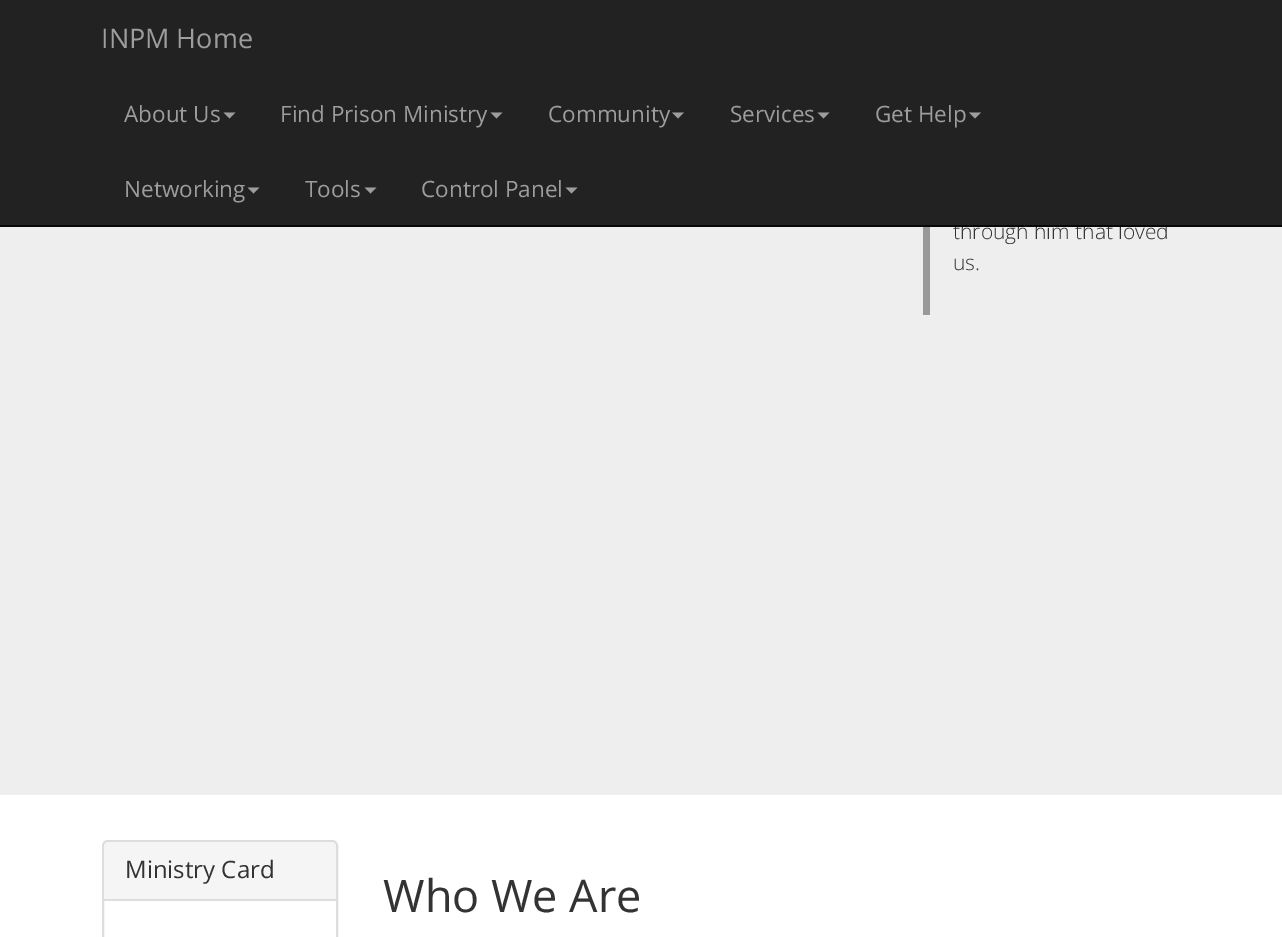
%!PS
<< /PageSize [1282 937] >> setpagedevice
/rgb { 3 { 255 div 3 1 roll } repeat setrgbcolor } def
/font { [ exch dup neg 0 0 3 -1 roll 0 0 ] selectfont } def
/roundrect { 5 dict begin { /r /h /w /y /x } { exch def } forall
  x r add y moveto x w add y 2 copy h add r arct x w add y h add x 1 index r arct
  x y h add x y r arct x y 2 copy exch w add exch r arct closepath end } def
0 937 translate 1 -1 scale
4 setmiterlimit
255 255 255 rgb
0 0 1282 937 rectfill
238 238 238 rgb
0 227 1282 568 rectfill
153 153 153 rgb
923 227 7 88 rectfill
221 221 221 rgb
2 setlinewidth
103 841 234 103 5 roundrect stroke
245 245 245 rgb
109 842 moveto 331 842 lineto 334 842 336 844 336 847 curveto 336 900 lineto 104 900 lineto 104 847 lineto 104 844 106 842 109 842 curveto closepath fill
221 221 221 rgb
104 899 232 2 rectfill
/OpenSans-Light 21 font
51 51 51 rgb
953 239 moveto (through him that loved) show
34 34 34 rgb
0 0 1282 225 rectfill
157 157 157 rgb
565.5 187.5 moveto 577.5 187.5 lineto 571.5 193.5 lineto closepath fill
/OpenSans-Regular 22.5 font
421 197 moveto (Control Panel) show
364.5 187.5 moveto 376.5 187.5 lineto 370.5 193.5 lineto closepath fill
305 197 moveto (Tools) show
247.5 187.5 moveto 259.5 187.5 lineto 253.5 193.5 lineto closepath fill
124 197 moveto (Networking) show
969 112.5 moveto 981 112.5 lineto 975 118.5 lineto closepath fill
875 122 moveto (Get Help) show
817.5 112.5 moveto 829.5 112.5 lineto 823.5 118.5 lineto closepath fill
730 122 moveto (Services) show
672 112.5 moveto 684 112.5 lineto 678 118.5 lineto closepath fill
548 122 moveto (Community) show
490.5 112.5 moveto 502.5 112.5 lineto 496.5 118.5 lineto closepath fill
280 122 moveto (Find Prison Ministry) show
223.5 112.5 moveto 235.5 112.5 lineto 229.5 118.5 lineto closepath fill
124 122 moveto (About Us) show
/OpenSans-Regular 27 font
101 48 moveto (INPM Home) show
8 8 8 rgb
0 225 1282 2 rectfill
/OpenSans-Light 21 font
51 51 51 rgb
953 270 moveto (us.) show
/OpenSans-Regular 24 font
125 878 moveto (Ministry Card) show
/OpenSans-Regular 45 font
383 912 moveto (Who We Are) show
showpage
